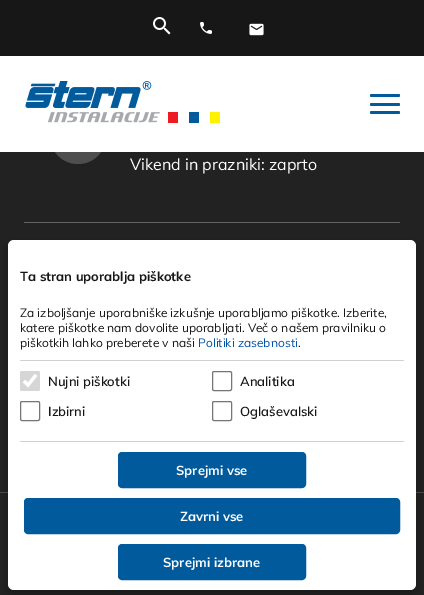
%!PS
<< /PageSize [424 595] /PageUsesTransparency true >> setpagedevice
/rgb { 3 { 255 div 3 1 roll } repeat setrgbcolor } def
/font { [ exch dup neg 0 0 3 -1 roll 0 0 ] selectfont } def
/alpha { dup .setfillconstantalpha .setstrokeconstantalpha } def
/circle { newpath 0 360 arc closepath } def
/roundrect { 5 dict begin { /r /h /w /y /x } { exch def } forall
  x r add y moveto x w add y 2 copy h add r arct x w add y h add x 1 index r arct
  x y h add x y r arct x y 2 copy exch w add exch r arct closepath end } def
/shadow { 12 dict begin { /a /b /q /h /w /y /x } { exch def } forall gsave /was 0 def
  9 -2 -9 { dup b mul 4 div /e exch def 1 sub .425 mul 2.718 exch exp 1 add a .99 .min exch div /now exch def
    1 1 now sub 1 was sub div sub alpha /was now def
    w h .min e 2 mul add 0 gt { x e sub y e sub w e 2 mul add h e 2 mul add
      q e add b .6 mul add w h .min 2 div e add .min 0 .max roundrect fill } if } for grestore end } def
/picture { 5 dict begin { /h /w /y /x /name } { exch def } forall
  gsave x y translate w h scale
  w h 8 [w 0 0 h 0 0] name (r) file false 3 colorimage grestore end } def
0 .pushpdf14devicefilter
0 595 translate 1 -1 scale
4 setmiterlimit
34 34 34 rgb
0 0 424 595 rectfill
23 23 23 rgb
0 0 424 56 rectfill
(img/1.rgb) 153 17 18 18 picture
(img/2.rgb) 200 22 12 12 picture
(img/3.rgb) 249 23 15 13 picture
78 78 78 rgb
78 136 28 circle fill
255 255 255 rgb
0 56 424 96 rectfill
(img/4.rgb) 25 81 195 42 picture
0 90 156 rgb
370 94 30 3 1.5 roundrect fill
370 103 30 3 1.5 roundrect fill
370 111 30 3 1.5 roundrect fill
100 100 100 rgb
24 222 376 1 rectfill
78 78 78 rgb
0 492 424 1 rectfill
0 0 0 rgb
8 244 408 350 6 6 0.3 shadow
255 255 255 rgb
8 240 408 350 6 roundrect fill
209 209 209 rgb
20 360 384 1 rectfill
20 441 384 1 rectfill
214 214 214 rgb
20 371 20 20 2 roundrect fill
255 255 255 rgb
3.2 setlinewidth
24 381 moveto 28 385 lineto 36 375 lineto stroke
118 118 118 rgb
1 setlinewidth
212.5 371.5 19 19 1.5 roundrect stroke
20.5 401.5 19 19 1.5 roundrect stroke
212.5 401.5 19 19 1.5 roundrect stroke
0 90 156 rgb
119 453 186 34 3 roundrect gsave fill grestore
2 setlinewidth
stroke
25 499 374 34 3 roundrect gsave fill grestore
stroke
119 545 186 34 3 roundrect gsave fill grestore
stroke
/Mulish-Regular 16 font
255 255 255 rgb
130 170 moveto (Vikend in prazniki: zaprto) show
/Mulish-Bold 13 font
23 23 23 rgb
20 281 moveto (Ta stran uporablja piškotke) show
/Mulish-Regular 12 font
[
  [(Za izboljšanje uporabniške izkušnje uporabljamo piškotke. Izberite,) 20 317]
  [(katere piškotke nam dovolite uporabljati. Več o našem pravilniku o) 20 332]
  [(piškotkih lahko preberete v naši) 20 347]
] { aload pop moveto show } forall
0 84 167 rgb
198 347 moveto (Politiki zasebnosti) show
23 23 23 rgb
298 347 moveto (.) show
/Mulish-SemiBold 13 font
[
  [(Nujni piškotki) 48 386]
  [(Analitika) 240 386]
  [(Izbirni) 48 416]
  [(Oglaševalski) 240 416]
] { aload pop moveto show } forall
/Mulish-Bold 13 font
255 255 255 rgb
[
  [(Sprejmi vse) 176 475]
  [(Zavrni vse) 180 521]
  [(Sprejmi izbrane) 163 567]
] { aload pop moveto show } forall
.poppdf14devicefilter showpage
